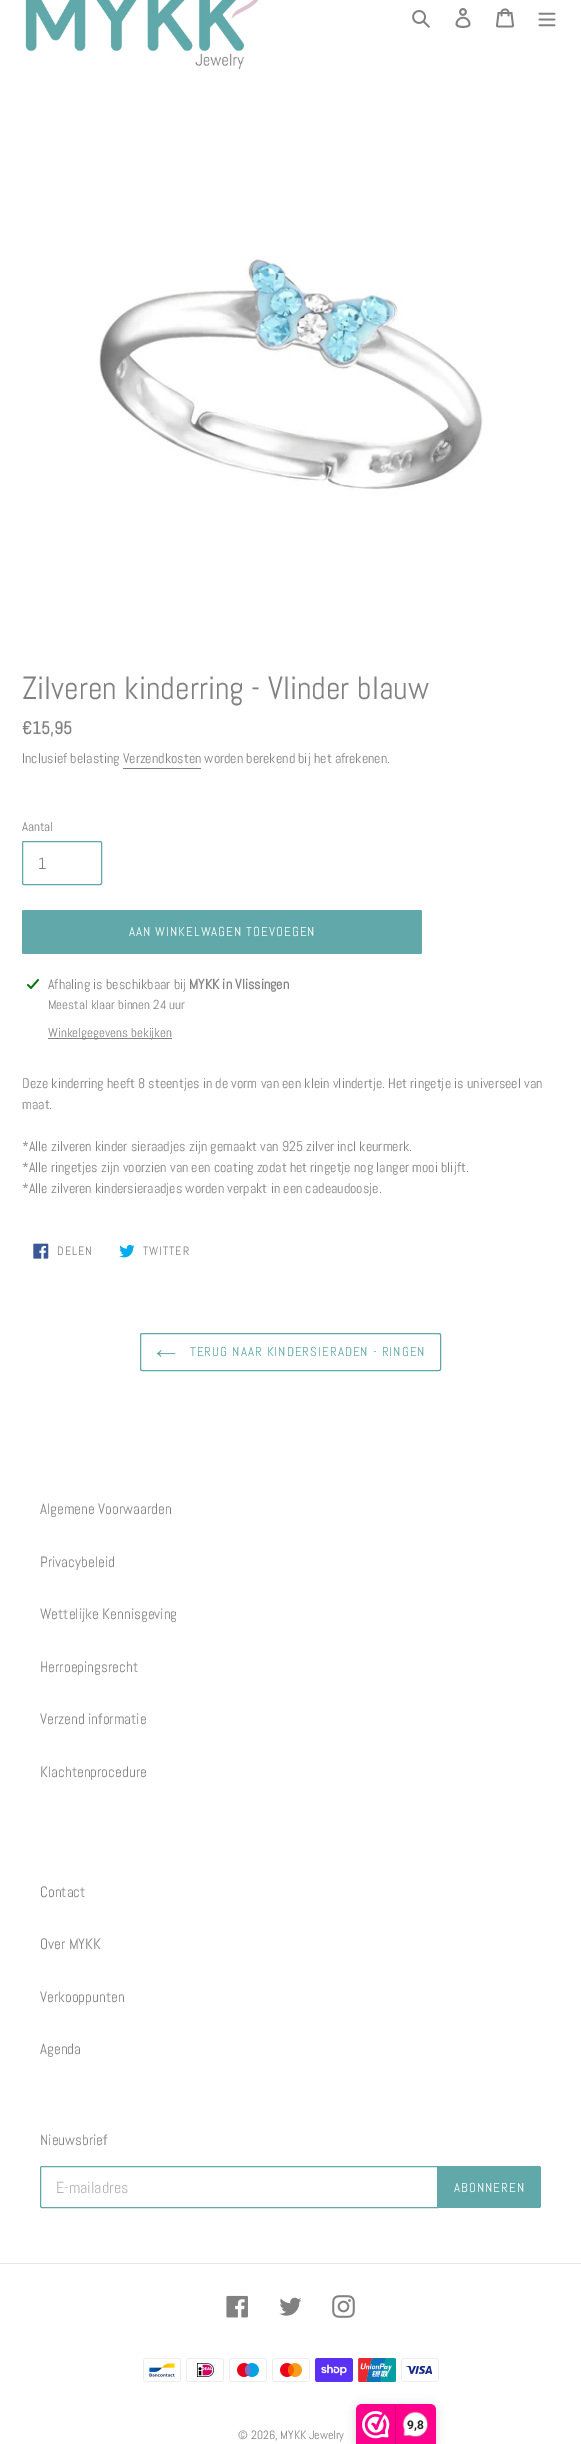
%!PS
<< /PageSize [581 2444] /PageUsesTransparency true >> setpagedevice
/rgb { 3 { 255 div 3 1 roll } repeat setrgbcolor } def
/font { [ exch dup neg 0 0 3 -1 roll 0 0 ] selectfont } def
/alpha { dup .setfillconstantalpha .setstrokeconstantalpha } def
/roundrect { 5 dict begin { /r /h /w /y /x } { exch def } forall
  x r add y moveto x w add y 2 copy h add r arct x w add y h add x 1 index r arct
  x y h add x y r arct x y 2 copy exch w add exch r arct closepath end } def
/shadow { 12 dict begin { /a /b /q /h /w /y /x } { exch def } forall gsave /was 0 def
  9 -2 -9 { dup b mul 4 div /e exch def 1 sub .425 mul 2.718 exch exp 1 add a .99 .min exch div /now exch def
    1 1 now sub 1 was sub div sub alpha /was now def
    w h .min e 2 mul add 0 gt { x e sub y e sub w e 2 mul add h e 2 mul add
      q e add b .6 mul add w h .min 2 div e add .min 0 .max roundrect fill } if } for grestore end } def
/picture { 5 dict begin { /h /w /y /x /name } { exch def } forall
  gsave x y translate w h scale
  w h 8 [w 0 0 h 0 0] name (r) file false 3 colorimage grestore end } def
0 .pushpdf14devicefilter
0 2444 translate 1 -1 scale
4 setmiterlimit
255 255 255 rgb
0 0 581 2444 rectfill
(img/1.rgb) 25 0 234 69 picture
(img/2.rgb) 412 10 18 18 picture
(img/3.rgb) 455 8 16 20 picture
(img/4.rgb) 496 8 18 20 picture
(img/5.rgb) 538 12 18 15 picture
(img/6.rgb) 99 258 384 232 picture
129 129 129 rgb
123 768 78 1 rectfill
96 168 169 rgb
22.5 841.5 79 43 1.5 roundrect stroke
22 910 400 44 2 roundrect fill
(img/7.rgb) 27 979 12 10 picture
129 129 129 rgb
48 1038 124 1 rectfill
(img/8.rgb) 33 1243 16 16 picture
(img/9.rgb) 119 1244 16 14 picture
96 168 169 rgb
140.5 1333.5 300 37 1.5 roundrect stroke
(img/10.rgb) 156 1350 20 8 picture
42 2166.5 moveto 437.5 2166.5 lineto 437.5 2207.5 lineto 42 2207.5 lineto 41 2207.5 40.5 2207 40.5 2206 curveto 40.5 2168 lineto 40.5 2167 41 2166.5 42 2166.5 curveto closepath stroke
438 2166 moveto 539 2166 lineto 540 2166 541 2167 541 2168 curveto 541 2206 lineto 541 2207 540 2208 539 2208 curveto 438 2208 lineto closepath fill
230 230 230 rgb
0 2263 581 1 rectfill
(img/11.rgb) 226 2295 22 23 picture
(img/12.rgb) 279 2297 23 19 picture
(img/13.rgb) 332 2295 23 23 picture
(img/14.rgb) 143 2358 38 24 picture
(img/15.rgb) 186 2358 38 24 picture
(img/16.rgb) 229 2358 38 24 picture
(img/17.rgb) 272 2358 38 24 picture
(img/18.rgb) 315 2358 38 24 picture
(img/19.rgb) 358 2358 38 24 picture
(img/20.rgb) 401 2358 38 24 picture
0 0 0 rgb
356 2406 80 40 6 5 0.15 shadow
254 0 140 rgb
362 2404 moveto 430 2404 lineto 433.5 2404 436 2406.5 436 2410 curveto 436 2444 lineto 356 2444 lineto 356 2410 lineto 356 2406.5 358.5 2404 362 2404 curveto closepath fill
(img/21.rgb) 362 2411 28 28 picture
216 0 119 rgb
395 2405 1 39 rectfill
(img/22.rgb) 402 2411 26 26 picture
/Abel-Regular 32 font
129 129 129 rgb
22 699 moveto (Zilveren kinderring - Vlinder blauw) show
/Abel-Bold 17.5 font
22 734 moveto (€15,95) show
/Abel-Regular 14 font
22 763 moveto (Inclusief belasting Verzendkosten worden berekend bij het afrekenen.) show
/Abel-Regular 13 font
22 831 moveto (Aantal) show
/Abel-Regular 16 font
38 869 moveto (1) show
/Abel-Regular 13 font
255 255 255 rgb
129 936 moveto 1.05 0 (AAN WINKELWAGEN TOEVOEGEN) ashow
/Abel-Regular 14 font
129 129 129 rgb
48 989 moveto (Afhaling is beschikbaar bij) show
/Abel-Bold 14 font
189 989 moveto (MYKK in Vlissingen) show
/Abel-Regular 13 font
48 1009 moveto (Meestal klaar binnen 24 uur) show
48 1037 moveto (Winkelgegevens bekijken) show
/Abel-Regular 14 font
[
  [(Deze kinderring heeft 8 steentjes in de vorm van een klein vlindertje. Het ringetje is universeel van) 22 1088]
  [(maat.) 22 1109]
  [(*Alle zilveren kinder sieraadjes zijn gemaakt van 925 zilver incl keurmerk.) 22 1151]
  [(*Alle ringetjes zijn voorzien van een coating zodat het ringetje nog langer mooi blijft.) 22 1172]
  [(*Alle zilveren kindersieraadjes worden verpakt in een cadeaudoosje.) 22 1193]
] { aload pop moveto show } forall
/Abel-Regular 12 font
57 1255 moveto 1 0 (DELEN) ashow
143 1255 moveto 1 0 (TWITTER) ashow
/Abel-Regular 13 font
96 168 169 rgb
190 1356 moveto 1.05 0 (TERUG NAAR KINDERSIERADEN - RINGEN) ashow
/Abel-Regular 15 font
129 129 129 rgb
[
  [(Algemene Voorwaarden) 40 1514]
  [(Privacybeleid) 40 1567]
  [(Wettelijke Kennisgeving) 40 1619]
  [(Herroepingsrecht) 40 1672]
  [(Verzend informatie) 40 1724]
  [(Klachtenprocedure) 40 1777]
  [(Contact) 40 1897]
  [(Over MYKK) 40 1949]
  [(Verkooppunten) 40 2002]
  [(Agenda) 40 2054]
  [(Nieuwsbrief) 40 2145]
] { aload pop moveto show } forall
/Abel-Regular 16 font
179 179 179 rgb
56 2193 moveto (E-mailadres) show
/Abel-Regular 13 font
255 255 255 rgb
454 2192 moveto 1.05 0 (ABONNEREN) ashow
/Abel-Regular 12 font
129 129 129 rgb
238 2439 moveto (© 2026, MYKK Jewelry) show
/Roboto-Bold 12 font
39 38 38 rgb
407 2429 moveto (9,8) show
.poppdf14devicefilter showpage
